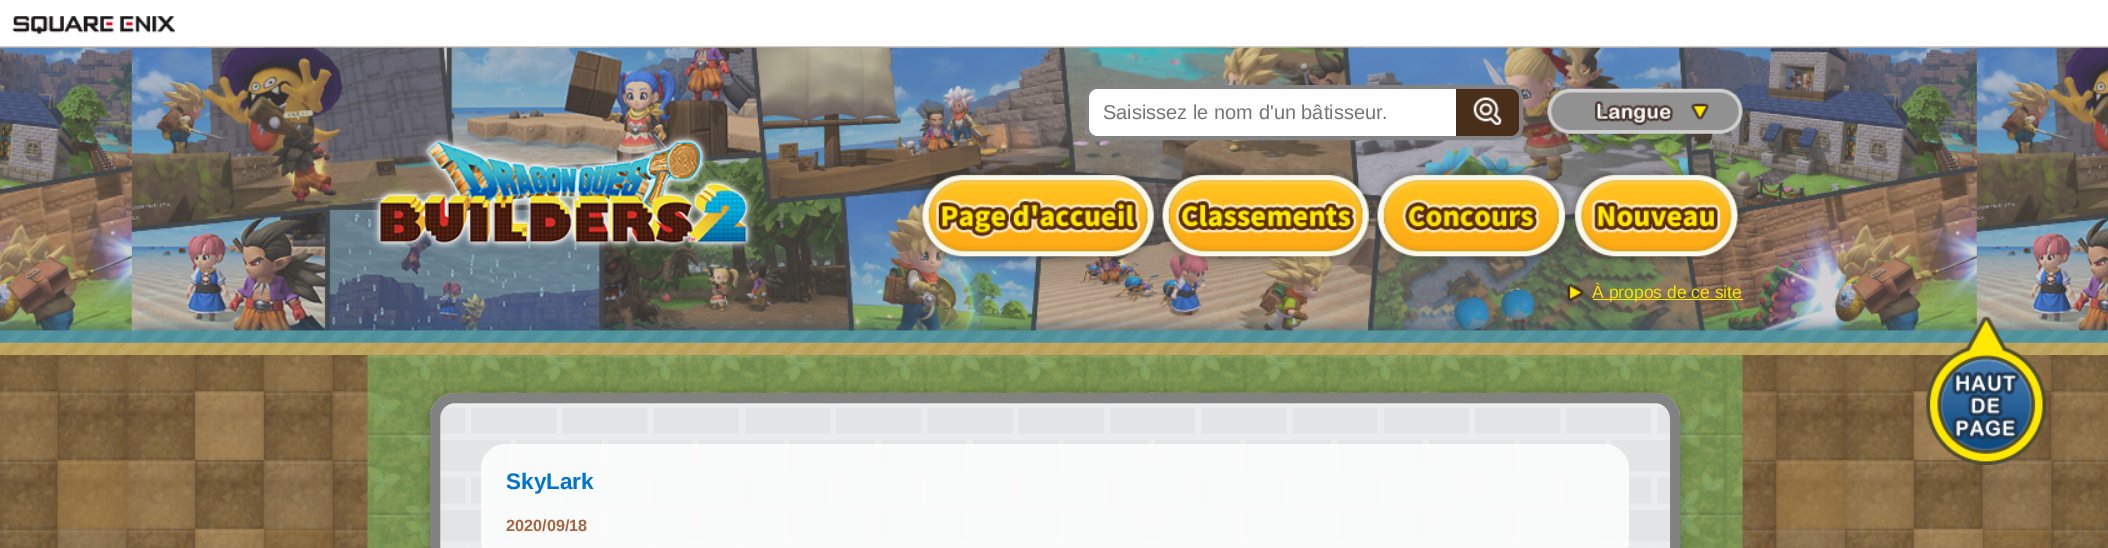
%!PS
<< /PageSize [2108 548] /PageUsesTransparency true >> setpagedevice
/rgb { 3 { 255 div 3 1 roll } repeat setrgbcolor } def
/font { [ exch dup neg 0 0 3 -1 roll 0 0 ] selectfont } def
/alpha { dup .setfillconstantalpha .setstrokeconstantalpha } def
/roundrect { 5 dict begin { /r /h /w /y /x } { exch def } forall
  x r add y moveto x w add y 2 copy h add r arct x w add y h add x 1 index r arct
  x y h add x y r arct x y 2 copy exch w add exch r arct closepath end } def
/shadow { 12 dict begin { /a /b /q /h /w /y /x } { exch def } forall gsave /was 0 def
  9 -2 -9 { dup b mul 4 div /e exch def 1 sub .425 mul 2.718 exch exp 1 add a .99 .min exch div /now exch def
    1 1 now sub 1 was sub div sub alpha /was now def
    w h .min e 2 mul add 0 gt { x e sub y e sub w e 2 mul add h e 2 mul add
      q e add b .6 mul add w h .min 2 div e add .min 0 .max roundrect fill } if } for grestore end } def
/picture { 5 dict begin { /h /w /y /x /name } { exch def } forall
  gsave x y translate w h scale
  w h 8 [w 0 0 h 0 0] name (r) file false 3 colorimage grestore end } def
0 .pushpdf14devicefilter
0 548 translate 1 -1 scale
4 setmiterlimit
255 255 255 rgb
0 0 2108 548 rectfill
204 204 204 rgb
0 46 2108 1 rectfill
(img/1.rgb) 12 16 163 18 picture
(img/2.rgb) 0 47 2108 501 picture
(img/3.rgb) 0 47 2108 308 picture
(img/4.rgb) 372 133 383 118 picture
131 131 131 rgb
4 setlinewidth
1087 87 434 51 11 roundrect stroke
255 255 255 rgb
1098 89 moveto 1456 89 lineto 1456 136 lineto 1098 136 lineto 1093 136 1089 132 1089 127 curveto 1089 98 lineto 1089 93 1093 89 1098 89 curveto closepath fill
73 46 25 rgb
1456 89 moveto 1510 89 lineto 1515 89 1519 93 1519 98 curveto 1519 127 lineto 1519 132 1515 136 1510 136 curveto 1456 136 lineto closepath fill
(img/5.rgb) 1473 97 29 28 picture
(img/6.rgb) 1547 88 196 46 picture
(img/7.rgb) 915 168 245 97 picture
(img/8.rgb) 1156 167 220 98 picture
(img/9.rgb) 1370 167 203 97 picture
(img/10.rgb) 1568 167 177 97 picture
(img/11.rgb) 1567 283 17 19 picture
250 229 1 rgb
1593 299 150 1 rectfill
(img/12.rgb) 367 355 1376 193 picture
(img/13.rgb) 1926 316 121 149 picture
0 0 0 rgb
430 393 1250 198 25 6 0.3 shadow
227 228 229 rgb
430 393 1250 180 25 roundrect fill
(img/14.rgb) 432 392 1246 156 picture
130 130 130 rgb
10 setlinewidth
435 398 1240 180 20 roundrect stroke
0.8 alpha
255 255 255 rgb
481 444 1148 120 25 roundrect fill
/LiberationSans-Regular 20 font
1 alpha
117 117 117 rgb
1103 119 moveto (Saisissez le nom d'un bâtisseur.) show
/LiberationSans-Regular 17 font
149 146 145 rgb
1600 118 moveto (i) show
/LiberationSans-Regular 17.5 font
250 229 1 rgb
1592 298 moveto (À propos de ce site) show
/LiberationSans-Bold 22.5 font
0 116 210 rgb
506 489 moveto (SkyLark) show
/LiberationSans-Bold 16.25 font
165 102 66 rgb
506 531 moveto (2020/09/18) show
.poppdf14devicefilter showpage
